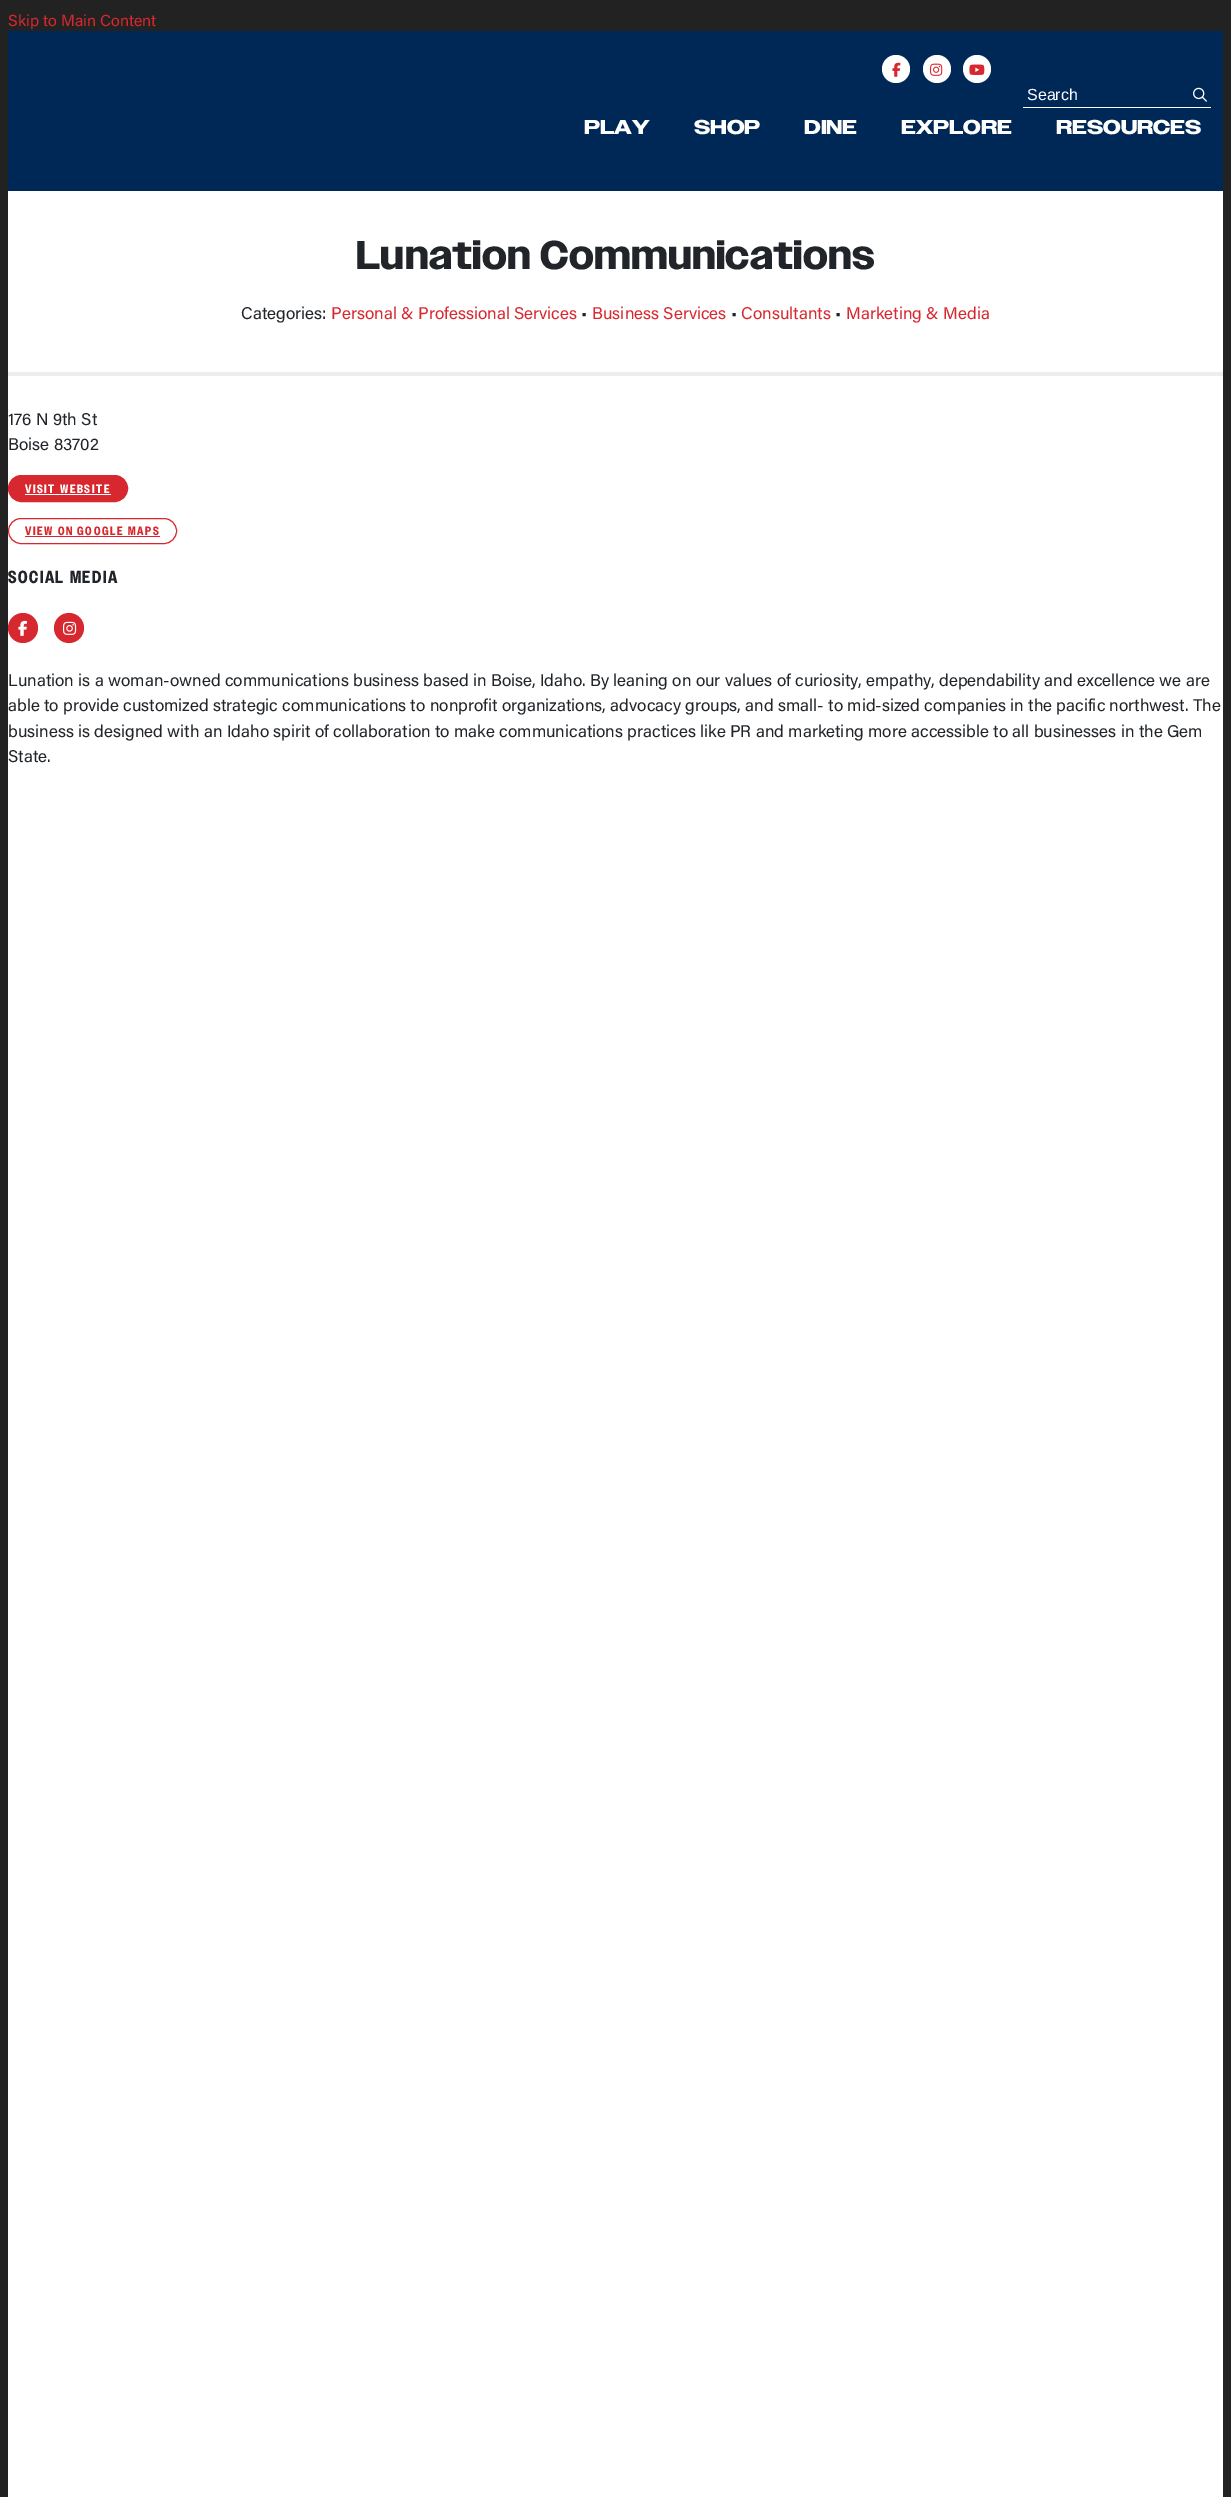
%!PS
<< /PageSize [1231 2497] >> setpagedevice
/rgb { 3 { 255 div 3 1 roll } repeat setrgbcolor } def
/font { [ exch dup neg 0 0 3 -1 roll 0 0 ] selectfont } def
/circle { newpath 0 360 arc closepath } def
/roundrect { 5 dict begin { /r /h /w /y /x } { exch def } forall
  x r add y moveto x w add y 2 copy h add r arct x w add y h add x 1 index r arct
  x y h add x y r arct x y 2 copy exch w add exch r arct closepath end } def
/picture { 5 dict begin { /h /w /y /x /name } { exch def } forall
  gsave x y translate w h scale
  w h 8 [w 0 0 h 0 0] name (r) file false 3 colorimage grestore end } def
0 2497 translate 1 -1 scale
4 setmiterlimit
34 34 34 rgb
0 0 1231 2497 rectfill
255 255 255 rgb
8 191 1215 2306 rectfill
0 40 86 rgb
8 31 1215 160 rectfill
255 255 255 rgb
896 69 14 circle fill
(img/1.rgb) 892 62 9 15 picture
937 69 14 circle fill
(img/2.rgb) 930 63 13 13 picture
977 69 14 circle fill
(img/3.rgb) 969 64 16 11 picture
1023 107 188 1 rectfill
(img/4.rgb) 1193 87 14 15 picture
237 237 237 rgb
8 372 1215 4 rectfill
215 40 47 rgb
8.5 475.5 119 26 13 roundrect gsave fill grestore
stroke
255 255 255 rgb
25 494 86 1 rectfill
215 40 47 rgb
8.5 518.5 168 25 12.5 roundrect stroke
25 536 135 1 rectfill
23 628 15 circle fill
(img/5.rgb) 18 620 9 16 picture
69 628 15 circle fill
(img/6.rgb) 63 621 14 14 picture
/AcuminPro-Regular 16 font
8 26 moveto (Skip to Main Content) show
/LiberationSans-Regular 16 font
255 255 255 rgb
1027 100 moveto (Search) show
/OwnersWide-Bold 20 font
[
  [(PLAY) 584 134]
  [(SHOP) 694 134]
  [(DINE) 804 134]
  [(EXPLORE) 901 134]
  [(RESOURCES) 1056 134]
] { aload pop moveto show } forall
/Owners-Bold 40 font
33 37 41 rgb
356 269 moveto 0.4 0 (Lunation Communications) ashow
/AcuminPro-Regular 17 font
241 319 moveto (Categories:) show
215 40 47 rgb
331 319 moveto (Personal & Professional Services) show
33 37 41 rgb
581 319 moveto (•) show
215 40 47 rgb
592 319 moveto (Business Services) show
33 37 41 rgb
731 319 moveto (•) show
215 40 47 rgb
741 319 moveto (Consultants) show
33 37 41 rgb
835 319 moveto (•) show
215 40 47 rgb
846 319 moveto (Marketing & Media) show
33 37 41 rgb
8 425 moveto (176 N 9th St) show
8 450 moveto (Boise 83702) show
/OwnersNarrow-Bold 12 font
255 255 255 rgb
25 493 moveto 1.6 0 (VISIT WEBSITE) ashow
215 40 47 rgb
25 535 moveto 1.6 0 (VIEW ON GOOGLE MAPS) ashow
/OwnersNarrow-Bold 17.5 font
33 37 41 rgb
8 583 moveto 1.5 0 (SOCIAL MEDIA) ashow
/AcuminPro-Regular 17 font
[
  [(Lunation is a woman-owned communications business based in Boise, Idaho. By leaning on our values of curiosity, empathy, dependability and excellence we are) 8 686]
  [(able to provide customized strategic communications to nonprofit organizations, advocacy groups, and small- to mid-sized companies in the pacific northwest. The) 8 711]
  [(business is designed with an Idaho spirit of collaboration to make communications practices like PR and marketing more accessible to all businesses in the Gem) 8 737]
  [(State.) 8 762]
] { aload pop moveto show } forall
showpage
